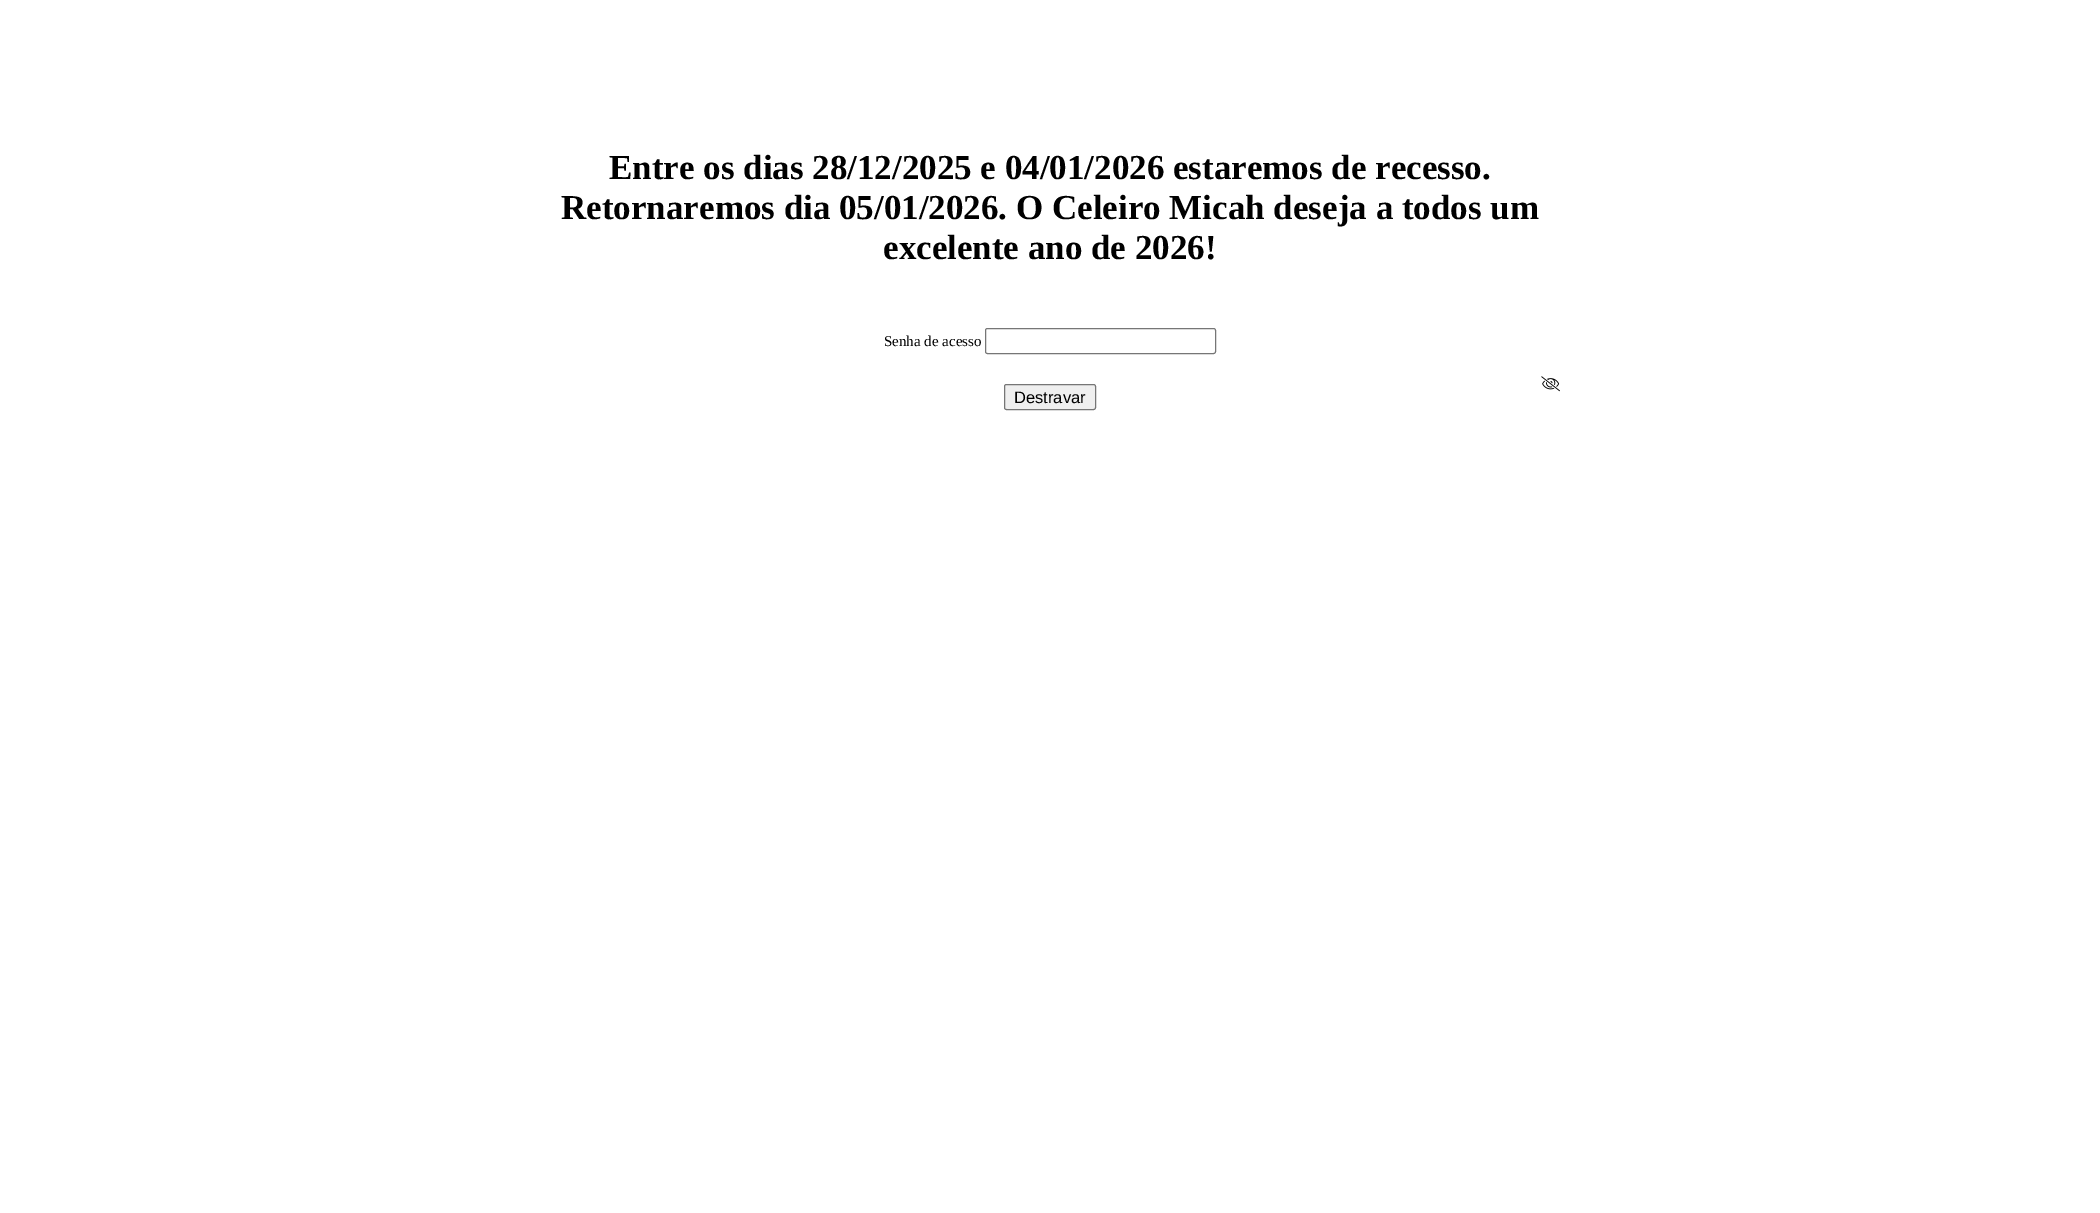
%!PS
<< /PageSize [2100 1213] >> setpagedevice
/rgb { 3 { 255 div 3 1 roll } repeat setrgbcolor } def
/font { [ exch dup neg 0 0 3 -1 roll 0 0 ] selectfont } def
/roundrect { 5 dict begin { /r /h /w /y /x } { exch def } forall
  x r add y moveto x w add y 2 copy h add r arct x w add y h add x 1 index r arct
  x y h add x y r arct x y 2 copy exch w add exch r arct closepath end } def
/picture { 5 dict begin { /h /w /y /x /name } { exch def } forall
  gsave x y translate w h scale
  w h 8 [w 0 0 h 0 0] name (r) file false 3 colorimage grestore end } def
0 1213 translate 1 -1 scale
4 setmiterlimit
255 255 255 rgb
0 0 2100 1213 rectfill
118 118 118 rgb
985.5 328.5 230 25 2 roundrect stroke
(img/1.rgb) 1541 376 19 16 picture
239 239 239 rgb
1004.5 384.5 91 25 2 roundrect gsave fill grestore
118 118 118 rgb
stroke
/LiberationSerif-Bold 35 font
0 0 0 rgb
[
  [(Entre os dias 28/12/2025 e 04/01/2026 estaremos de recesso.) 609 179]
  [(Retornaremos dia 05/01/2026. O Celeiro Micah deseja a todos um) 561 219]
  [(excelente ano de 2026!) 883 259]
] { aload pop moveto show } forall
/LiberationSerif-Regular 15 font
884 346 moveto (Senha de acesso) show
/LiberationSans-Regular 16.5 font
1014 403 moveto (Destravar) show
showpage
